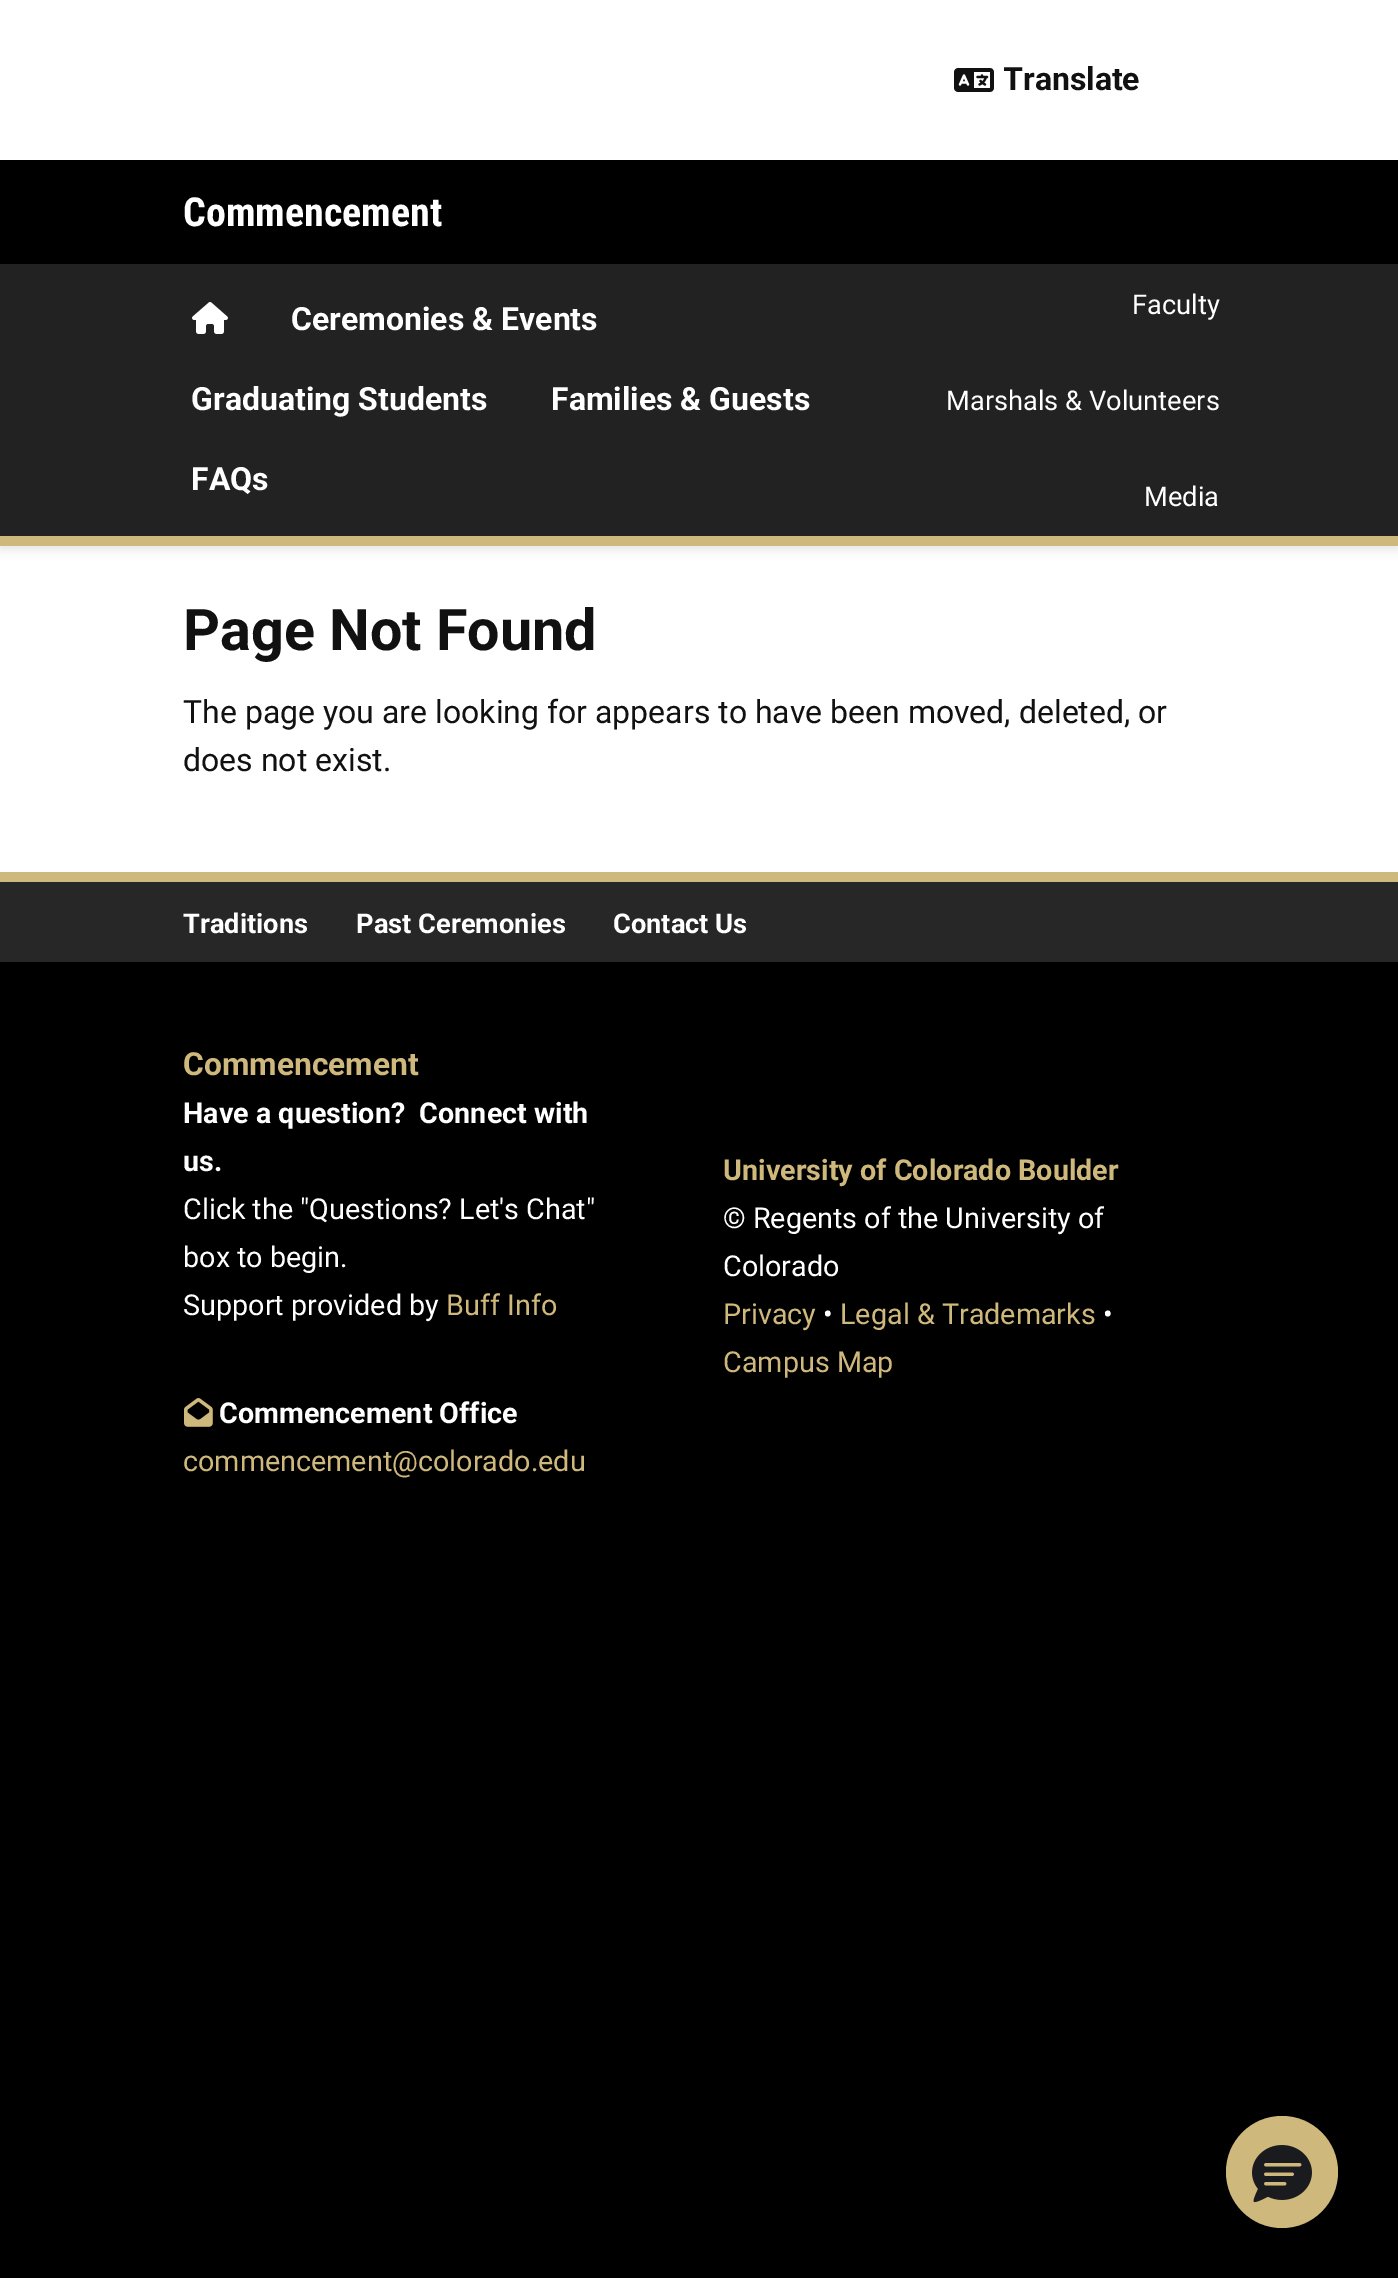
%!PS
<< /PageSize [1398 2278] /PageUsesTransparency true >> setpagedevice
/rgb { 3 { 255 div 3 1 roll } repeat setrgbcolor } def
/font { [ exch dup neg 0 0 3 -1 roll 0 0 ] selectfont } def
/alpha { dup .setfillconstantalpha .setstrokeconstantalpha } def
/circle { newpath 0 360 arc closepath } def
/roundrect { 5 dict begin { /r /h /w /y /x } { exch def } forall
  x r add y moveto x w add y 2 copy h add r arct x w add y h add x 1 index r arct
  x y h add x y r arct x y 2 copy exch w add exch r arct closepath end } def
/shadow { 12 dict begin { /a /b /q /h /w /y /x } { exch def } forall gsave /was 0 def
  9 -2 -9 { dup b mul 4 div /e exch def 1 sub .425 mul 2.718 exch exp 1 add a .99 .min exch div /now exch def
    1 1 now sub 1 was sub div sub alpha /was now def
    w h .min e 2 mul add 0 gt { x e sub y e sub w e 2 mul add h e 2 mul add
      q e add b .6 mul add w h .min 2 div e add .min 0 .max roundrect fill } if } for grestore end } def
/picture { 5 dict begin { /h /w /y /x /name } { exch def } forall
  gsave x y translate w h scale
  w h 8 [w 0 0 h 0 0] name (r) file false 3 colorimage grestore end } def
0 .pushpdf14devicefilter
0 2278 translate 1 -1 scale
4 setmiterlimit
255 255 255 rgb
0 0 1398 2278 rectfill
(img/1.rgb) 954 68 40 24 picture
0 0 0 rgb
0 268 1398 282 0 5 0.1 shadow
[
  [0 160 1398 104 0 0 0]
  [0 264 1398 272 34 34 34]
  [0 536 1398 10 207 184 124]
] { aload pop rgb rectfill } forall
(img/2.rgb) 192 302 36 32 picture
[
  [0 962 1398 1316 0 0 0]
  [0 882 1398 80 39 39 39]
  [0 872 1398 10 207 184 124]
] { aload pop rgb rectfill } forall
(img/3.rgb) 184 1398 29 29 picture
1282 2172 56 circle fill
(img/4.rgb) 1252 2145 60 58 picture
gsave
1004 56 140 48 rectclip
/Roboto-Bold 32 font
17 17 17 rgb
1003 90 moveto (Translate) show
grestore
/RobotoCondensed-Bold 40 font
255 255 255 rgb
183 226 moveto (Commencement) show
/Roboto-Bold 32 font
[
  [(Ceremonies & Events) 291 330]
  [(Graduating Students) 191 410]
  [(Families & Guests) 551 410]
  [(FAQs) 191 490]
] { aload pop moveto show } forall
/Roboto-Regular 27.25 font
[
  [(Faculty) 1132 314]
  [(Marshals & Volunteers) 946 410]
  [(Media) 1144 506]
] { aload pop moveto show } forall
/Roboto-Bold 57.5 font
17 17 17 rgb
183 650 moveto (Page Not Found) show
/Roboto-Regular 32 font
183 723 moveto (The page you are looking for appears to have been moved, deleted, or) show
183 771 moveto (does not exist.) show
/Roboto-Bold 27.25 font
255 255 255 rgb
[
  [(Traditions) 183 933]
  [(Past Ceremonies) 356 933]
  [(Contact Us) 613 933]
] { aload pop moveto show } forall
/Roboto-Bold 31.75 font
207 184 124 rgb
183 1075 moveto (Commencement) show
/Roboto-Bold 28.75 font
255 255 255 rgb
183 1123 moveto (Have a question?  Connect with) show
183 1171 moveto (us.) show
/Roboto-Regular 28.75 font
[
  [(Click the "Questions? Let's Chat") 183 1219]
  [(box to begin.) 183 1267]
  [(Support provided by) 183 1315]
] { aload pop moveto show } forall
207 184 124 rgb
446 1315 moveto (Buff Info) show
/Roboto-Bold 28.75 font
255 255 255 rgb
219 1423 moveto (Commencement Office) show
/Roboto-Regular 28.75 font
207 184 124 rgb
183 1471 moveto (commencement@colorado.edu) show
/Roboto-Bold 28.75 font
723 1180 moveto (University of Colorado Boulder) show
/Roboto-Regular 28.75 font
255 255 255 rgb
723 1228 moveto (© Regents of the University of) show
723 1276 moveto (Colorado) show
207 184 124 rgb
723 1324 moveto (Privacy) show
255 255 255 rgb
823 1324 moveto (•) show
207 184 124 rgb
840 1324 moveto (Legal & Trademarks) show
255 255 255 rgb
1103 1324 moveto (•) show
207 184 124 rgb
723 1372 moveto (Campus Map) show
.poppdf14devicefilter showpage
